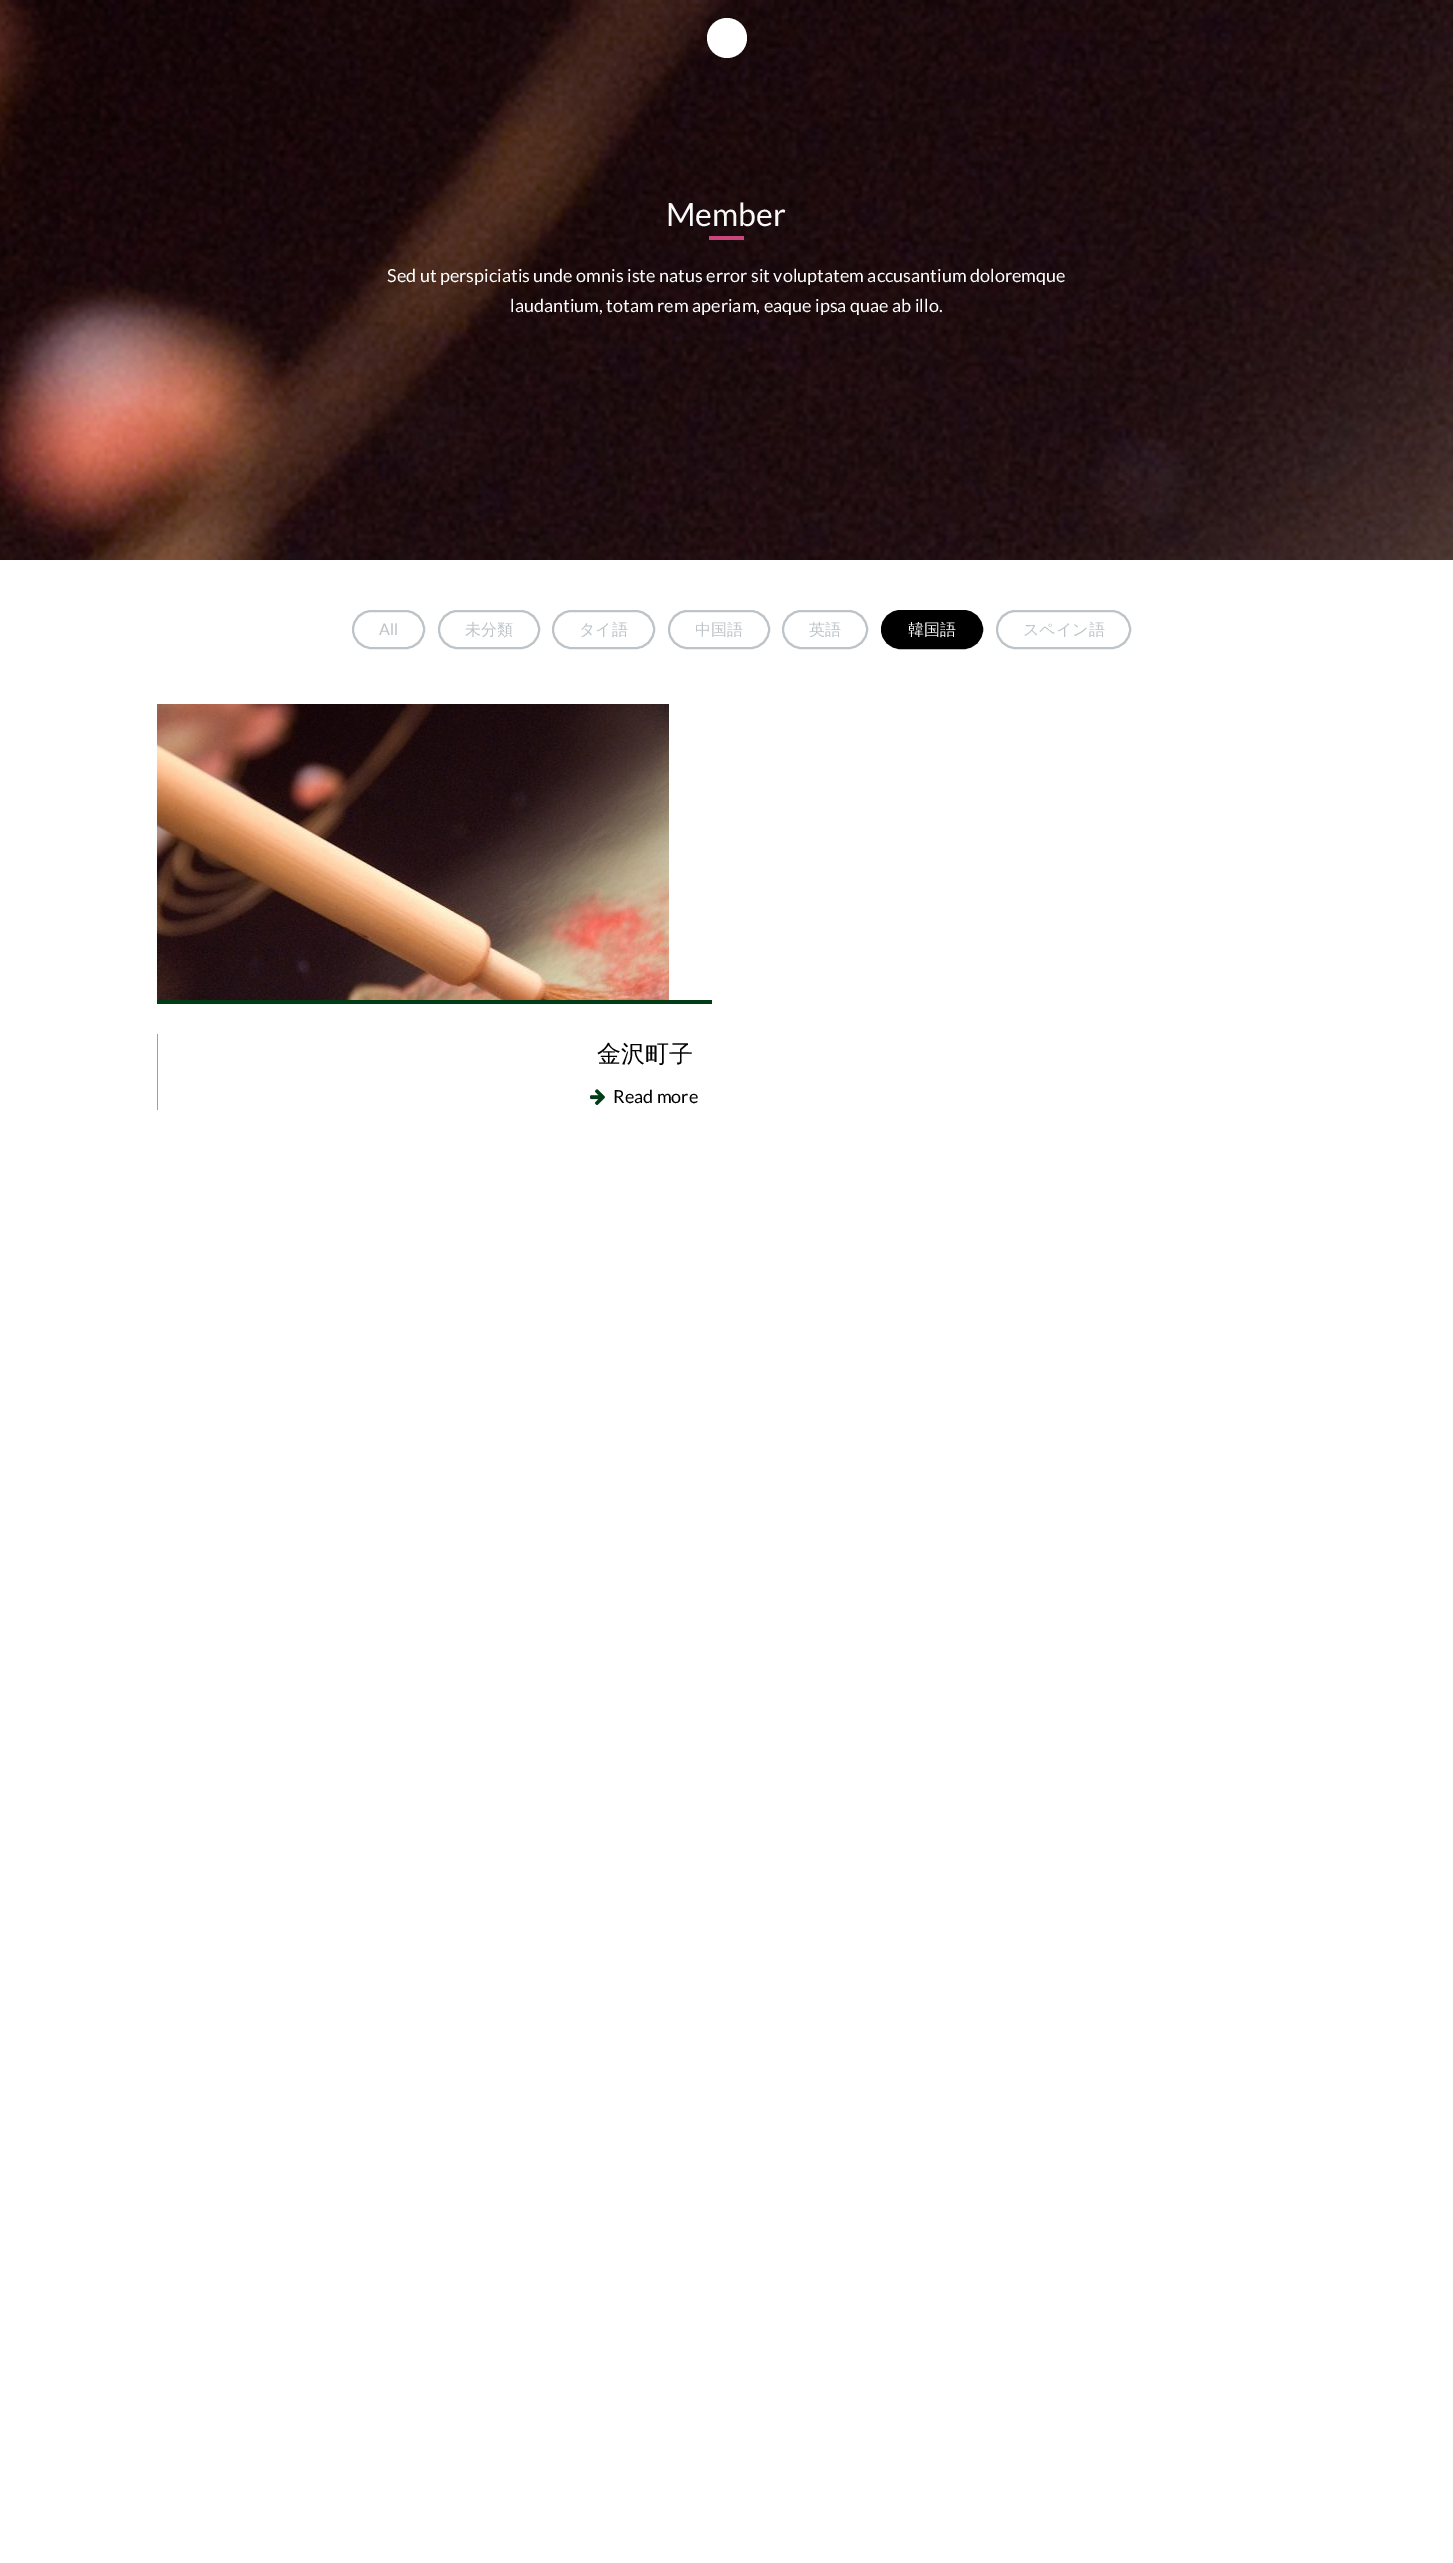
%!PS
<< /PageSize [1453 2563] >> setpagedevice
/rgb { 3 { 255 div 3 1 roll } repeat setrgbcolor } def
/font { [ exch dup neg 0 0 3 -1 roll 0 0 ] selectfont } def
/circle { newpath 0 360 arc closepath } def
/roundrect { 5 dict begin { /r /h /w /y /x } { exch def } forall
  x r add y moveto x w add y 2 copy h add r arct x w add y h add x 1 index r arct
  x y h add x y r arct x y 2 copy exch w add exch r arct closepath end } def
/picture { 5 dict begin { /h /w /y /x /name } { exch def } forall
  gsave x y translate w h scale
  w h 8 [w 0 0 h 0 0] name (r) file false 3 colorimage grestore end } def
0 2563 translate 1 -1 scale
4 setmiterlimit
255 255 255 rgb
0 0 1453 2563 rectfill
(img/1.rgb) 0 0 1453 560 picture
727 38 20 circle fill
204 70 124 rgb
709 236 35 4 rectfill
189 195 199 rgb
2 setlinewidth
353 611 71 37 18.5 roundrect stroke
439 611 100 37 18.5 roundrect stroke
553 611 101 37 18.5 roundrect stroke
669 611 100 37 18.5 roundrect stroke
783 611 84 37 18.5 roundrect stroke
0 0 0 rgb
882 611 100 37 18.5 roundrect gsave fill grestore
stroke
189 195 199 rgb
997 611 133 37 18.5 roundrect stroke
0 61 22 rgb
157 1000 555 4 rectfill
(img/2.rgb) 157 704 512 296 picture
149 165 165 rgb
157 1034 1 76 rectfill
(img/3.rgb) 590 1089 15 16 picture
/Lato-Regular 32 font
249 249 249 rgb
666 226 moveto (Member) show
/Lato-Regular 18 font
255 255 255 rgb
387 282 moveto (Sed ut perspiciatis unde omnis iste natus error sit voluptatem accusantium doloremque) show
510 312 moveto (laudantium, totam rem aperiam, eaque ipsa quae ab illo.) show
/Lato-Regular 16 font
189 195 199 rgb
379 635 moveto (All) show
/WenQuanYiZenHei-Medium 16 font
[
  [(未分類) 465 635]
  [(タイ語) 579 635]
  [(中国語) 695 635]
  [(英語) 809 635]
] { aload pop moveto show } forall
255 255 255 rgb
908 635 moveto (韓国語) show
189 195 199 rgb
1023 635 moveto (スペイン語) show
/WenQuanYiZenHei-Medium 24 font
0 0 0 rgb
597 1062 moveto (金沢町子) show
/Lato-Regular 18 font
613 1103 moveto (Read more) show
showpage
